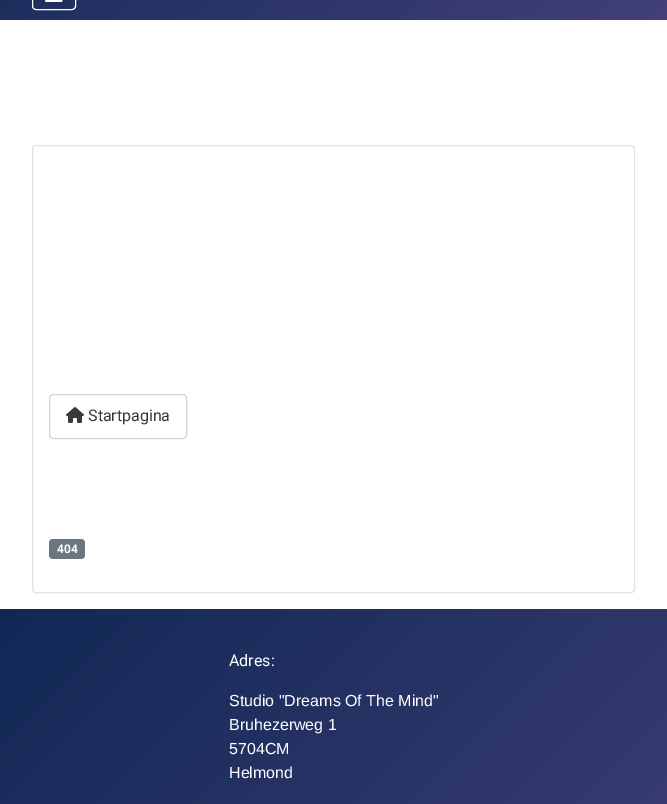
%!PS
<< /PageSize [667 804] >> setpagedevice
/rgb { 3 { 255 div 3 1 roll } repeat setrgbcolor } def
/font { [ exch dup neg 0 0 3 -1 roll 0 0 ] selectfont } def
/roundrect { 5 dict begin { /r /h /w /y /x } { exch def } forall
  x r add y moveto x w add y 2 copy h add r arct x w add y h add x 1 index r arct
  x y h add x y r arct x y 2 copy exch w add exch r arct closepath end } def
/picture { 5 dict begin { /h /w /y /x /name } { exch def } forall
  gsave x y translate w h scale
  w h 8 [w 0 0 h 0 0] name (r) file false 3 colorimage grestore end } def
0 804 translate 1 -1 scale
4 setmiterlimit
255 255 255 rgb
0 0 667 804 rectfill
gsave 0 0 moveto 667 0 lineto 667 20 lineto 0 20 lineto closepath clip newpath
<< /ShadingType 2 /ColorSpace /DeviceRGB /Coords [107 -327 560 127] /Extend [true true] /Function << /FunctionType 2 /Domain [0 1] /C0 [0.067 0.157 0.333] /C1 [0.259 0.251 0.467] /N 1 >> >> shfill grestore
32.5 -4.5 43 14 3.5 roundrect stroke
(img/1.rgb) 45 0 18 2 picture
223 227 231 rgb
32.5 145.5 602 447 3.5 roundrect stroke
206 212 218 rgb
49.5 394.5 137 44 3.5 roundrect stroke
(img/2.rgb) 66 407 18 16 picture
109 117 126 rgb
49 539 36 20 4 roundrect fill
gsave 0 609 moveto 667 609 lineto 667 804 lineto 0 804 lineto closepath clip newpath
<< /ShadingType 2 /ColorSpace /DeviceRGB /Coords [57 552 610 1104] /Extend [true true] /Function << /FunctionType 2 /Domain [0 1] /C0 [0.067 0.157 0.333] /C1 [0.259 0.251 0.467] /N 1 >> >> shfill grestore
/Roboto-Regular 16 font
53 59 65 rgb
88 421 moveto (Startpagina) show
/Roboto-Bold 12 font
255 255 255 rgb
57 553 moveto (404) show
/Roboto-Regular 16 font
229 666 moveto (Adres:) show
/LiberationSans-Regular 16 font
[
  [(Studio "Dreams Of The Mind") 229 706]
  [(Bruhezerweg 1) 229 730]
  [(5704CM) 229 754]
  [(Helmond) 229 778]
] { aload pop moveto show } forall
showpage
